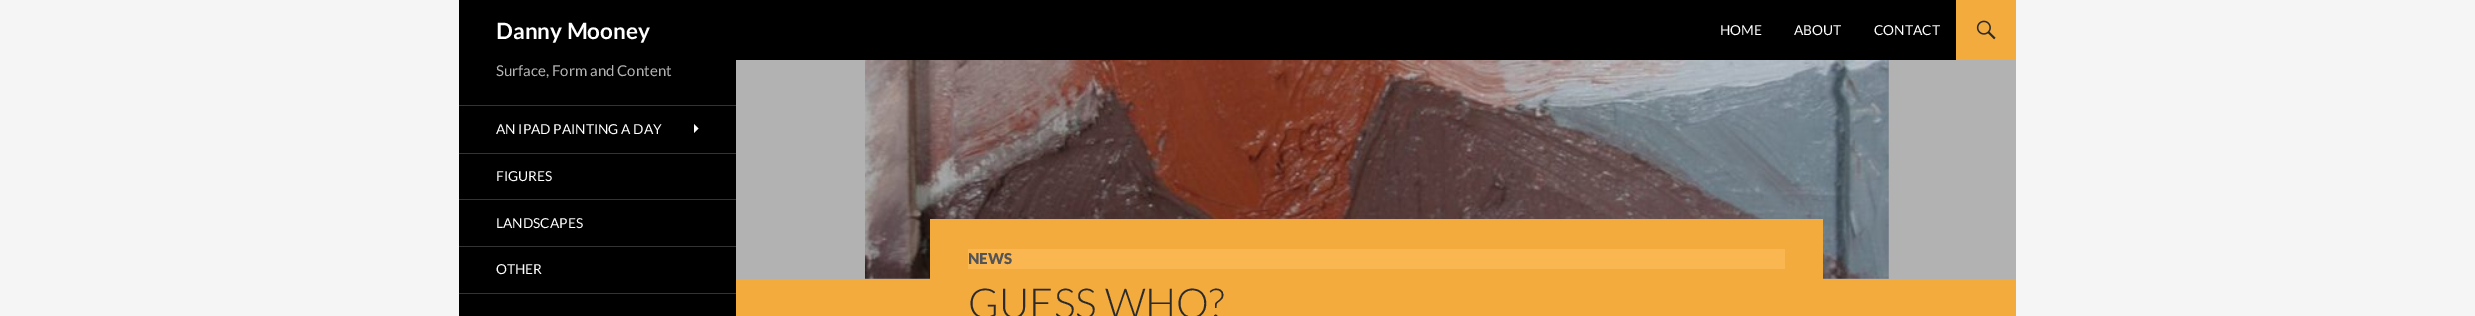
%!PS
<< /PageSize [2475 316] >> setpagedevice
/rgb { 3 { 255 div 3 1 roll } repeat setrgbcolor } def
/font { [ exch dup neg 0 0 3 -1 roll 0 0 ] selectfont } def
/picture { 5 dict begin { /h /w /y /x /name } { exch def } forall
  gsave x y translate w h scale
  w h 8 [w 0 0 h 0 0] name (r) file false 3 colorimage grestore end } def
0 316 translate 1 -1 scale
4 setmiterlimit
245 245 245 rgb
0 0 2475 316 rectfill
0 0 0 rgb
459 0 1497 60 rectfill
244 171 62 rgb
1956 0 60 60 rectfill
(img/1.rgb) 1976 20 20 20 picture
[
  [459 60 277 256 0 0 0]
  [736 279 1280 37 244 171 62]
  [459 293 277 1 51 51 51]
  [459 105 277 1 51 51 51]
] { aload pop rgb rectfill } forall
255 255 255 rgb
694 133 moveto 698.5 128.5 lineto 694 124 lineto closepath fill
[
  [459 153 277 1 51 51 51]
  [459 199 277 1 51 51 51]
  [459 246 277 1 51 51 51]
  [736 60 1280 219 178 178 178]
] { aload pop rgb rectfill } forall
(img/2.rgb) 865 60 1024 219 picture
244 171 62 rgb
930 219 893 60 rectfill
250 182 80 rgb
968 249 817 20 rectfill
/Lato-Bold 22.5 font
255 255 255 rgb
496 39 moveto (Danny Mooney) show
/Lato-Regular 13.75 font
[
  [(HOME) 1720 35]
  [(ABOUT) 1794 35]
  [(CONTACT) 1874 35]
] { aload pop moveto show } forall
/Lato-Regular 15 font
179 179 179 rgb
496 76 moveto (Surface, Form and Content) show
/Lato-Regular 13.75 font
255 255 255 rgb
[
  [(AN IPAD PAINTING A DAY) 496 134]
  [(FIGURES) 496 181]
  [(LANDSCAPES) 496 228]
  [(OTHER) 496 274]
] { aload pop moveto show } forall
/Lato-Black 15 font
84 84 84 rgb
968 264 moveto (NEWS) show
/Lato-Light 41.25 font
43 43 43 rgb
968 318 moveto (GUESS WHO?) show
showpage
